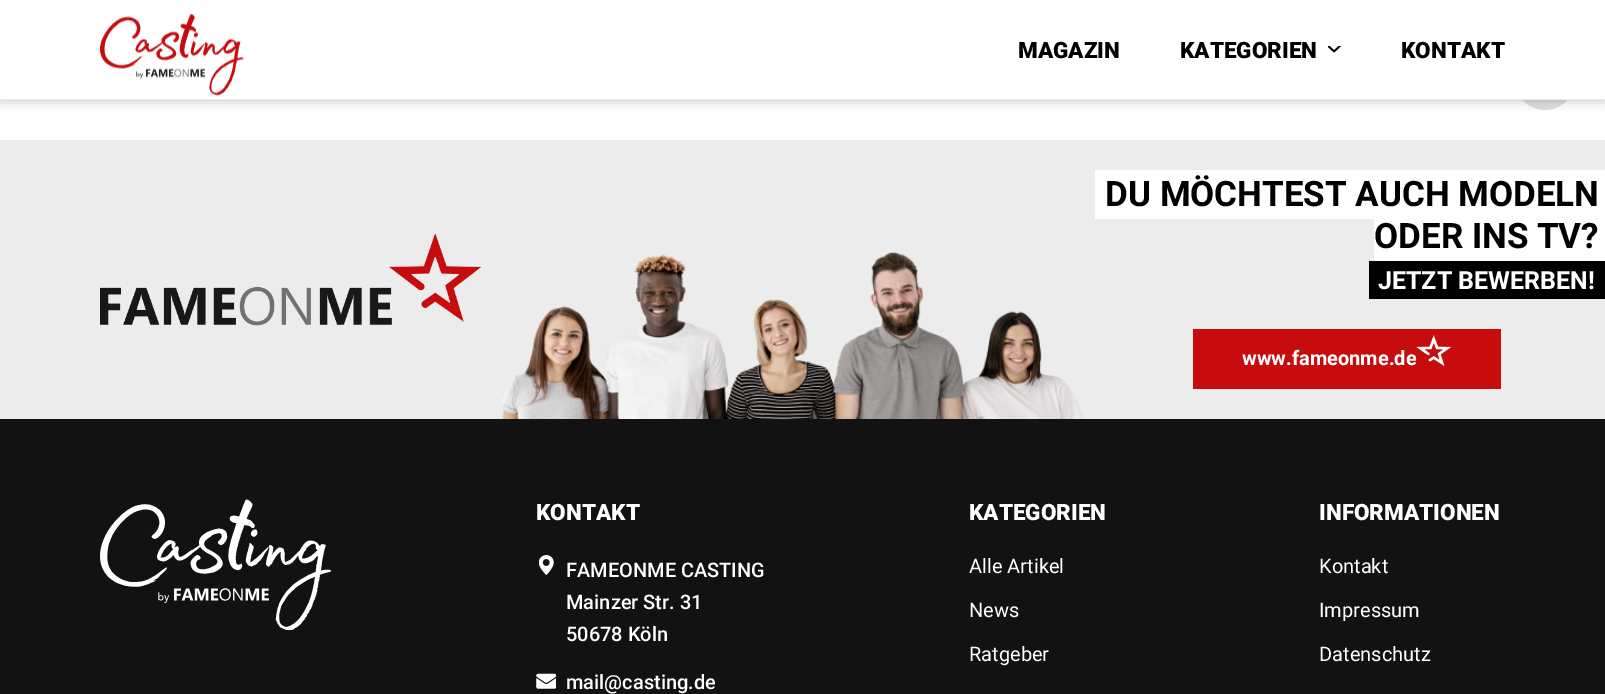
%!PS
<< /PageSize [1605 694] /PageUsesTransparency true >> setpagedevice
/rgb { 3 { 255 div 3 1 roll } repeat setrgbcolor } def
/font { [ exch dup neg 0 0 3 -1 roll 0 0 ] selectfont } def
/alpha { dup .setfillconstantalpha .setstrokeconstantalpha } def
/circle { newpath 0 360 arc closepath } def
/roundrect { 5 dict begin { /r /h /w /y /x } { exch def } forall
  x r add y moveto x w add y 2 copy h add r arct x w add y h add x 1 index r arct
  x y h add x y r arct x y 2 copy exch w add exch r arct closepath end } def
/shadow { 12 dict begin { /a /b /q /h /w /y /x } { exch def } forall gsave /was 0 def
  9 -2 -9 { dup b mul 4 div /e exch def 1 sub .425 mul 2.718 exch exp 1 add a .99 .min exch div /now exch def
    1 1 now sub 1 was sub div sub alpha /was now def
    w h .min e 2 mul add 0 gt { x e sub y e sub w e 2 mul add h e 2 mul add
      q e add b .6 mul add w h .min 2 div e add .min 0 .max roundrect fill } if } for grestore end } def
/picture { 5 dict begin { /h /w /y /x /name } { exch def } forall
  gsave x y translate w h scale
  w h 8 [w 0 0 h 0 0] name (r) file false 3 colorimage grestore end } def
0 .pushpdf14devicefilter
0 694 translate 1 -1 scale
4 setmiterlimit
255 255 255 rgb
0 0 1605 694 rectfill
223 223 223 rgb
1545 80 30 circle fill
0 0 0 rgb
0 0 1605 100 0 6 0.25 shadow
255 255 255 rgb
0 0 1605 99 rectfill
236 236 236 rgb
0 99 1605 1 rectfill
(img/1.rgb) 100 13 144 83 picture
(img/2.rgb) 1328 46 13 7 picture
0 140 1605 279 rectfill
(img/3.rgb) 100 233 381 93 picture
(img/4.rgb) 502 252 582 167 picture
[
  [1599 170 6 91 255 255 255]
  [1095 170 504 49 255 255 255]
  [1374 219 225 42 255 255 255]
  [1369 261 236 38 0 0 0]
  [1193 329 308 60 199 12 14]
  [0 419 1605 275 18 18 18]
] { aload pop rgb rectfill } forall
(img/6.rgb) 100 499 231 131 picture
(img/7.rgb) 539 555 15 20 picture
(img/8.rgb) 536 673 20 16 picture
/Roboto-Black 22.5 font
0 0 0 rgb
[
  [(MAGAZIN) 1018 58]
  [(KATEGORIEN) 1180 58]
  [(KONTAKT) 1401 58]
] { aload pop moveto show } forall
/Roboto-Bold 35 font
1105 206 moveto (DU MÖCHTEST AUCH MODELN) show
1374 248 moveto (ODER INS TV?) show
/Roboto-Bold 25 font
255 255 255 rgb
1378 289 moveto (JETZT BEWERBEN!) show
/Roboto-Bold 20 font
1242 365 moveto (www.fameonme.de) show
(img/5.rgb) 1416 335 35 31 picture
/Roboto-Black 22.5 font
536 520 moveto (KONTAKT) show
/Roboto-Medium 20 font
[
  [(FAMEONME CASTING) 566 577]
  [(Mainzer Str. 31) 566 609]
  [(50678 Köln) 566 641]
  [(mail@casting.de) 566 689]
] { aload pop moveto show } forall
/Roboto-Black 22.5 font
969 520 moveto (KATEGORIEN) show
/Roboto-Regular 20 font
[
  [(Alle Artikel) 969 573]
  [(News) 969 617]
  [(Ratgeber) 969 661]
] { aload pop moveto show } forall
/Roboto-Black 22.5 font
1319 520 moveto (INFORMATIONEN) show
/Roboto-Regular 20 font
[
  [(Kontakt) 1319 573]
  [(Impressum) 1319 617]
  [(Datenschutz) 1319 661]
] { aload pop moveto show } forall
.poppdf14devicefilter showpage
